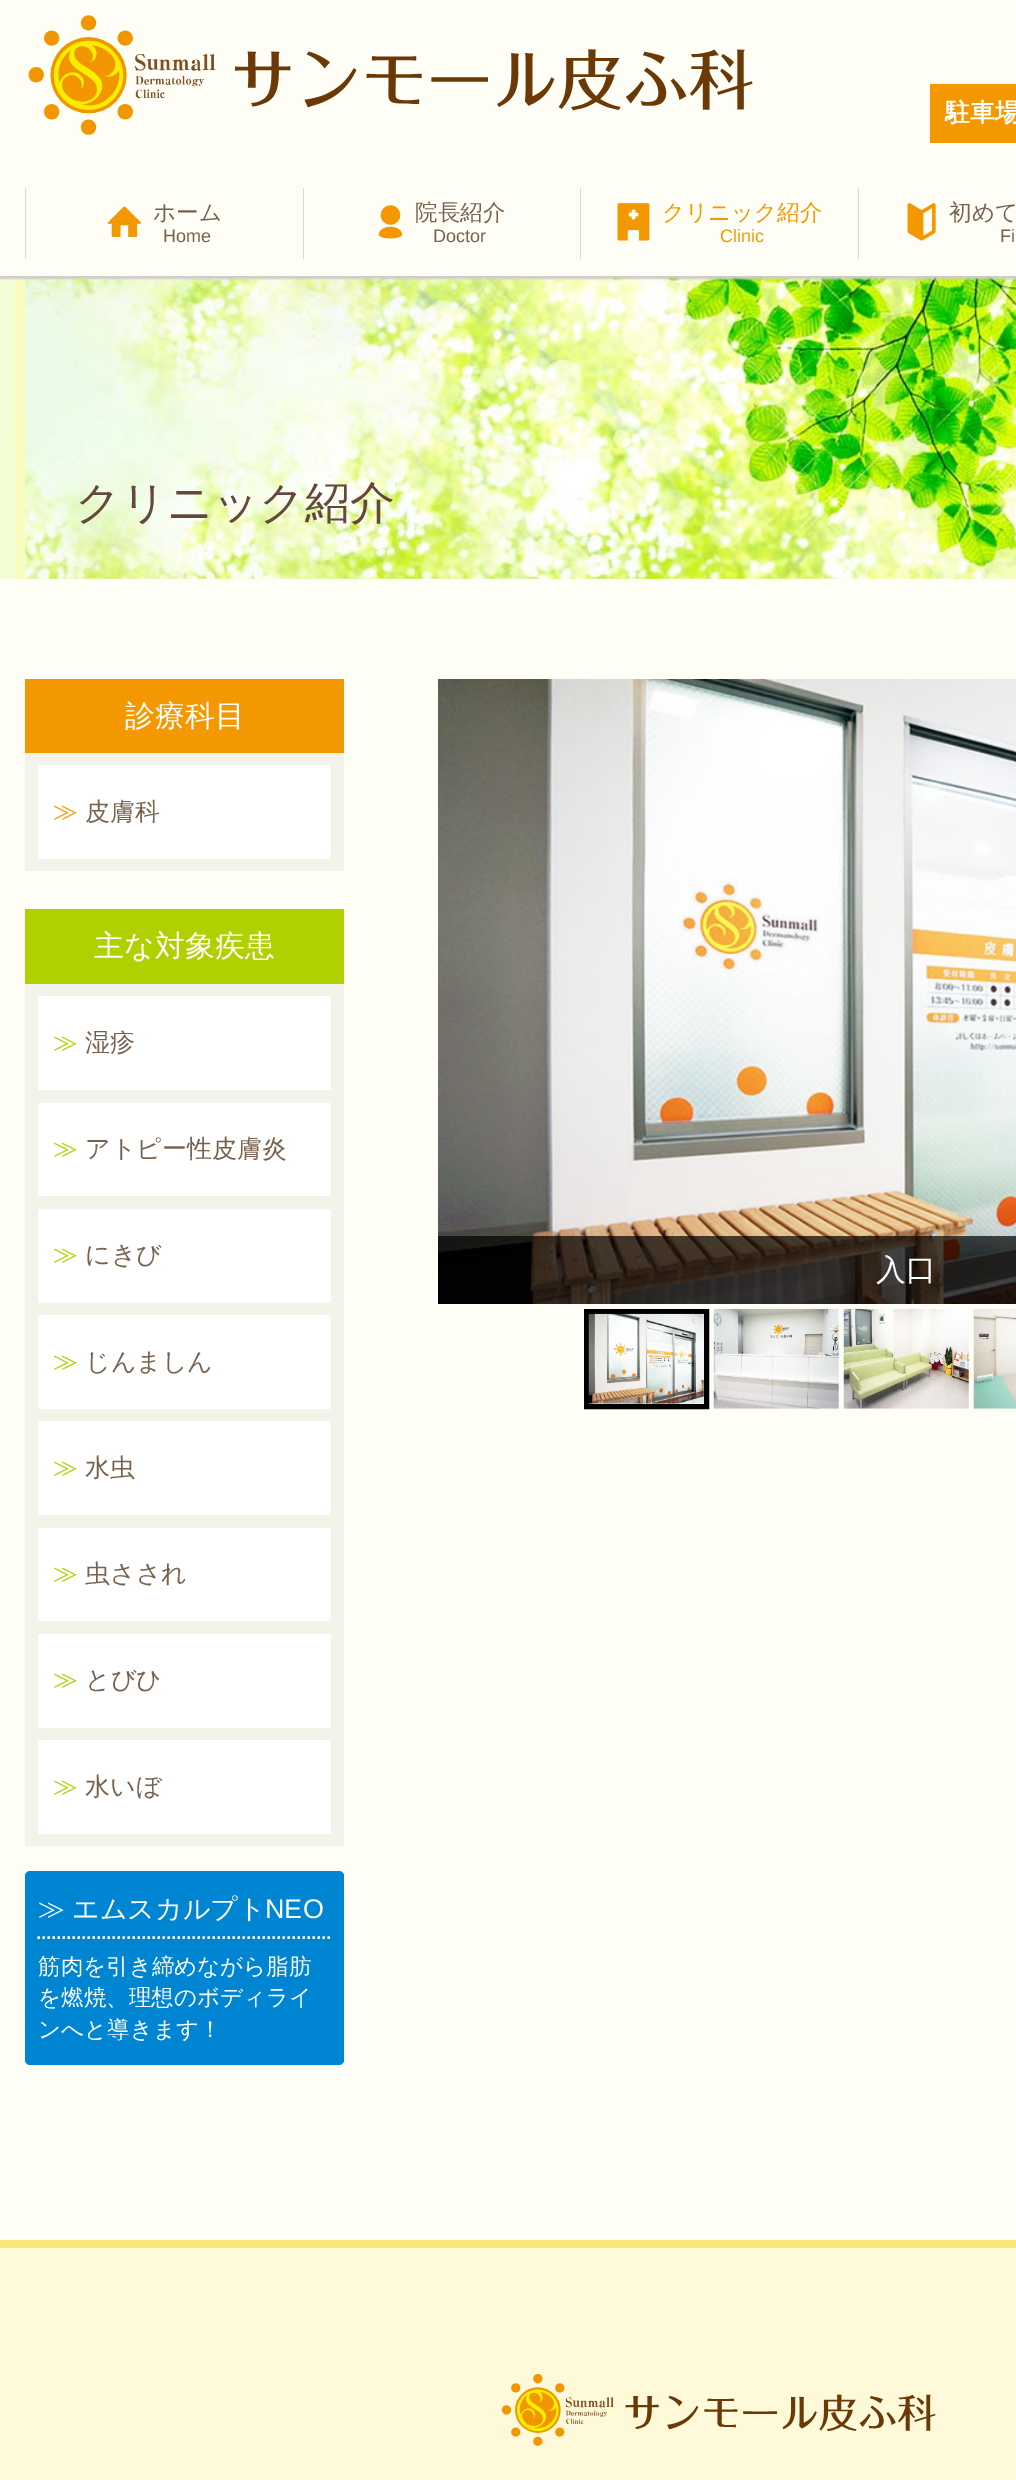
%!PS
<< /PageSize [1016 2480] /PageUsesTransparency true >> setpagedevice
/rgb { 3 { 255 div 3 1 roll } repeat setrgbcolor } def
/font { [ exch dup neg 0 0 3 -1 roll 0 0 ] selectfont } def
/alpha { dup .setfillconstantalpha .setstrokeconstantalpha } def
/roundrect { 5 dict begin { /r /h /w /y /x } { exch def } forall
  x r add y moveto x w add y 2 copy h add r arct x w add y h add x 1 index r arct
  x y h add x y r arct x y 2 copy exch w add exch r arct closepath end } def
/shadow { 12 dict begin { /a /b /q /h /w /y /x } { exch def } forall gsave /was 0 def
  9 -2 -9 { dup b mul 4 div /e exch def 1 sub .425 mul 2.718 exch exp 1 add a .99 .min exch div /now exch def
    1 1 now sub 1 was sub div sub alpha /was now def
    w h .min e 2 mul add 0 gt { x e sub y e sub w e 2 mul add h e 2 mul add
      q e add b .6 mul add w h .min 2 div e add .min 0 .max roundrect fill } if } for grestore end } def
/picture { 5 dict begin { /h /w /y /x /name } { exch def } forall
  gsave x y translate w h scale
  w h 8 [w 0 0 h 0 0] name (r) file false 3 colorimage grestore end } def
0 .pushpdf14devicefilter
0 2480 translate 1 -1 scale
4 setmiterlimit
255 254 246 rgb
0 0 1016 2480 rectfill
(img/1.rgb) 28 15 725 120 picture
243 152 0 rgb
930 84 86 59 rectfill
gsave 0 276 moveto 1016 276 lineto 1016 579 lineto 0 579 lineto closepath clip newpath
<< /ShadingType 2 /ColorSpace /DeviceRGB /Coords [0 428 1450 427] /Extend [true true] /Function << /FunctionType 3 /Domain [0 1] /Functions [<< /FunctionType 2 /Domain [0 1] /C0 [0.949 0.996 0.839] /C1 [0.949 0.996 0.839] /N 1 >> << /FunctionType 2 /Domain [0 1] /C0 [0.98 0.984 0.745] /C1 [0.98 0.984 0.745] /N 1 >> << /FunctionType 2 /Domain [0 1] /C0 [0.949 0.996 0.839] /C1 [0.949 0.996 0.839] /N 1 >> << /FunctionType 2 /Domain [0 1] /C0 [0.949 0.996 0.839] /C1 [0.949 0.996 0.839] /N 1 >> << /FunctionType 2 /Domain [0 1] /C0 [0.949 0.996 0.839] /C1 [0.98 0.984 0.745] /N 1 >> << /FunctionType 2 /Domain [0 1] /C0 [0.949 0.996 0.839] /C1 [0.949 0.996 0.839] /N 1 >> << /FunctionType 2 /Domain [0 1] /C0 [0.98 0.984 0.745] /C1 [0.98 0.984 0.745] /N 1 >> << /FunctionType 2 /Domain [0 1] /C0 [0.949 0.996 0.839] /C1 [0.949 0.996 0.839] /N 1 >> << /FunctionType 2 /Domain [0 1] /C0 [0.98 0.984 0.745] /C1 [0.98 0.984 0.745] /N 1 >> << /FunctionType 2 /Domain [0 1] /C0 [0.949 0.996 0.839] /C1 [0.98 0.984 0.745] /N 1 >> << /FunctionType 2 /Domain [0 1] /C0 [0.949 0.996 0.839] /C1 [0.949 0.996 0.839] /N 1 >> << /FunctionType 2 /Domain [0 1] /C0 [0.949 0.996 0.839] /C1 [0.98 0.984 0.745] /N 1 >> << /FunctionType 2 /Domain [0 1] /C0 [0.949 0.996 0.839] /C1 [0.949 0.996 0.839] /N 1 >> << /FunctionType 2 /Domain [0 1] /C0 [0.98 0.984 0.745] /C1 [0.98 0.984 0.745] /N 1 >> << /FunctionType 2 /Domain [0 1] /C0 [0.949 0.996 0.839] /C1 [0.949 0.996 0.839] /N 1 >> << /FunctionType 2 /Domain [0 1] /C0 [0.98 0.984 0.745] /C1 [0.98 0.984 0.745] /N 1 >> << /FunctionType 2 /Domain [0 1] /C0 [0.949 0.996 0.839] /C1 [0.98 0.984 0.745] /N 1 >> << /FunctionType 2 /Domain [0 1] /C0 [0.949 0.996 0.839] /C1 [0.949 0.996 0.839] /N 1 >> << /FunctionType 2 /Domain [0 1] /C0 [0.949 0.996 0.839] /C1 [0.98 0.984 0.745] /N 1 >> << /FunctionType 2 /Domain [0 1] /C0 [0.949 0.996 0.839] /C1 [0.949 0.996 0.839] /N 1 >> << /FunctionType 2 /Domain [0 1] /C0 [0.98 0.984 0.745] /C1 [0.98 0.984 0.745] /N 1 >> << /FunctionType 2 /Domain [0 1] /C0 [0.949 0.996 0.839] /C1 [0.949 0.996 0.839] /N 1 >> << /FunctionType 2 /Domain [0 1] /C0 [0.949 0.996 0.839] /C1 [0.949 0.996 0.839] /N 1 >> << /FunctionType 2 /Domain [0 1] /C0 [0.949 0.996 0.839] /C1 [0.98 0.984 0.745] /N 1 >> << /FunctionType 2 /Domain [0 1] /C0 [0.949 0.996 0.839] /C1 [0.949 0.996 0.839] /N 1 >> << /FunctionType 2 /Domain [0 1] /C0 [0.98 0.984 0.745] /C1 [0.98 0.984 0.745] /N 1 >> << /FunctionType 2 /Domain [0 1] /C0 [0.949 0.996 0.839] /C1 [0.949 0.996 0.839] /N 1 >> << /FunctionType 2 /Domain [0 1] /C0 [0.98 0.984 0.745] /C1 [0.98 0.984 0.745] /N 1 >> << /FunctionType 2 /Domain [0 1] /C0 [0.949 0.996 0.839] /C1 [0.98 0.984 0.745] /N 1 >> << /FunctionType 2 /Domain [0 1] /C0 [0.949 0.996 0.839] /C1 [0.949 0.996 0.839] /N 1 >> << /FunctionType 2 /Domain [0 1] /C0 [0.949 0.996 0.839] /C1 [0.98 0.984 0.745] /N 1 >> << /FunctionType 2 /Domain [0 1] /C0 [0.949 0.996 0.839] /C1 [0.949 0.996 0.839] /N 1 >> << /FunctionType 2 /Domain [0 1] /C0 [0.98 0.984 0.745] /C1 [0.98 0.984 0.745] /N 1 >> << /FunctionType 2 /Domain [0 1] /C0 [0.949 0.996 0.839] /C1 [0.949 0.996 0.839] /N 1 >> << /FunctionType 2 /Domain [0 1] /C0 [0.949 0.996 0.839] /C1 [0.949 0.996 0.839] /N 1 >> << /FunctionType 2 /Domain [0 1] /C0 [0.949 0.996 0.839] /C1 [0.98 0.984 0.745] /N 1 >> << /FunctionType 2 /Domain [0 1] /C0 [0.949 0.996 0.839] /C1 [0.949 0.996 0.839] /N 1 >> << /FunctionType 2 /Domain [0 1] /C0 [0.949 0.996 0.839] /C1 [0.98 0.984 0.745] /N 1 >> << /FunctionType 2 /Domain [0 1] /C0 [0.949 0.996 0.839] /C1 [0.949 0.996 0.839] /N 1 >> << /FunctionType 2 /Domain [0 1] /C0 [0.98 0.984 0.745] /C1 [0.98 0.984 0.745] /N 1 >> << /FunctionType 2 /Domain [0 1] /C0 [0.949 0.996 0.839] /C1 [0.949 0.996 0.839] /N 1 >> << /FunctionType 2 /Domain [0 1] /C0 [0.949 0.996 0.839] /C1 [0.949 0.996 0.839] /N 1 >> << /FunctionType 2 /Domain [0 1] /C0 [0.949 0.996 0.839] /C1 [0.98 0.984 0.745] /N 1 >> << /FunctionType 2 /Domain [0 1] /C0 [0.949 0.996 0.839] /C1 [0.949 0.996 0.839] /N 1 >> << /FunctionType 2 /Domain [0 1] /C0 [0.98 0.984 0.745] /C1 [0.98 0.984 0.745] /N 1 >> << /FunctionType 2 /Domain [0 1] /C0 [0.949 0.996 0.839] /C1 [0.949 0.996 0.839] /N 1 >> << /FunctionType 2 /Domain [0 1] /C0 [0.98 0.984 0.745] /C1 [0.98 0.984 0.745] /N 1 >> << /FunctionType 2 /Domain [0 1] /C0 [0.949 0.996 0.839] /C1 [0.98 0.984 0.745] /N 1 >> << /FunctionType 2 /Domain [0 1] /C0 [0.949 0.996 0.839] /C1 [0.949 0.996 0.839] /N 1 >> << /FunctionType 2 /Domain [0 1] /C0 [0.949 0.996 0.839] /C1 [0.98 0.984 0.745] /N 1 >> << /FunctionType 2 /Domain [0 1] /C0 [0.949 0.996 0.839] /C1 [0.949 0.996 0.839] /N 1 >> << /FunctionType 2 /Domain [0 1] /C0 [0.98 0.984 0.745] /C1 [0.98 0.984 0.745] /N 1 >> << /FunctionType 2 /Domain [0 1] /C0 [0.949 0.996 0.839] /C1 [0.949 0.996 0.839] /N 1 >> << /FunctionType 2 /Domain [0 1] /C0 [0.949 0.996 0.839] /C1 [0.949 0.996 0.839] /N 1 >> << /FunctionType 2 /Domain [0 1] /C0 [0.949 0.996 0.839] /C1 [0.98 0.984 0.745] /N 1 >> << /FunctionType 2 /Domain [0 1] /C0 [0.949 0.996 0.839] /C1 [0.949 0.996 0.839] /N 1 >> << /FunctionType 2 /Domain [0 1] /C0 [0.98 0.984 0.745] /C1 [0.98 0.984 0.745] /N 1 >> << /FunctionType 2 /Domain [0 1] /C0 [0.949 0.996 0.839] /C1 [0.949 0.996 0.839] /N 1 >> << /FunctionType 2 /Domain [0 1] /C0 [0.98 0.984 0.745] /C1 [0.98 0.984 0.745] /N 1 >> << /FunctionType 2 /Domain [0 1] /C0 [0.949 0.996 0.839] /C1 [0.98 0.984 0.745] /N 1 >> << /FunctionType 2 /Domain [0 1] /C0 [0.949 0.996 0.839] /C1 [0.949 0.996 0.839] /N 1 >> << /FunctionType 2 /Domain [0 1] /C0 [0.949 0.996 0.839] /C1 [0.98 0.984 0.745] /N 1 >> << /FunctionType 2 /Domain [0 1] /C0 [0.949 0.996 0.839] /C1 [0.949 0.996 0.839] /N 1 >> << /FunctionType 2 /Domain [0 1] /C0 [0.98 0.984 0.745] /C1 [0.98 0.984 0.745] /N 1 >> << /FunctionType 2 /Domain [0 1] /C0 [0.949 0.996 0.839] /C1 [0.949 0.996 0.839] /N 1 >> << /FunctionType 2 /Domain [0 1] /C0 [0.98 0.984 0.745] /C1 [0.98 0.984 0.745] /N 1 >> << /FunctionType 2 /Domain [0 1] /C0 [0.949 0.996 0.839] /C1 [0.98 0.984 0.745] /N 1 >> << /FunctionType 2 /Domain [0 1] /C0 [0.949 0.996 0.839] /C1 [0.949 0.996 0.839] /N 1 >> << /FunctionType 2 /Domain [0 1] /C0 [0.949 0.996 0.839] /C1 [0.98 0.984 0.745] /N 1 >> << /FunctionType 2 /Domain [0 1] /C0 [0.949 0.996 0.839] /C1 [0.949 0.996 0.839] /N 1 >> << /FunctionType 2 /Domain [0 1] /C0 [0.98 0.984 0.745] /C1 [0.98 0.984 0.745] /N 1 >> << /FunctionType 2 /Domain [0 1] /C0 [0.949 0.996 0.839] /C1 [0.949 0.996 0.839] /N 1 >> << /FunctionType 2 /Domain [0 1] /C0 [0.949 0.996 0.839] /C1 [0.949 0.996 0.839] /N 1 >> << /FunctionType 2 /Domain [0 1] /C0 [0.949 0.996 0.839] /C1 [0.98 0.984 0.745] /N 1 >> << /FunctionType 2 /Domain [0 1] /C0 [0.949 0.996 0.839] /C1 [0.949 0.996 0.839] /N 1 >> << /FunctionType 2 /Domain [0 1] /C0 [0.98 0.984 0.745] /C1 [0.98 0.984 0.745] /N 1 >> << /FunctionType 2 /Domain [0 1] /C0 [0.949 0.996 0.839] /C1 [0.949 0.996 0.839] /N 1 >> << /FunctionType 2 /Domain [0 1] /C0 [0.98 0.984 0.745] /C1 [0.98 0.984 0.745] /N 1 >> << /FunctionType 2 /Domain [0 1] /C0 [0.949 0.996 0.839] /C1 [0.98 0.984 0.745] /N 1 >> << /FunctionType 2 /Domain [0 1] /C0 [0.949 0.996 0.839] /C1 [0.949 0.996 0.839] /N 1 >> << /FunctionType 2 /Domain [0 1] /C0 [0.949 0.996 0.839] /C1 [0.98 0.984 0.745] /N 1 >> << /FunctionType 2 /Domain [0 1] /C0 [0.949 0.996 0.839] /C1 [0.949 0.996 0.839] /N 1 >> << /FunctionType 2 /Domain [0 1] /C0 [0.98 0.984 0.745] /C1 [0.98 0.984 0.745] /N 1 >> << /FunctionType 2 /Domain [0 1] /C0 [0.949 0.996 0.839] /C1 [0.949 0.996 0.839] /N 1 >> << /FunctionType 2 /Domain [0 1] /C0 [0.949 0.996 0.839] /C1 [0.949 0.996 0.839] /N 1 >> << /FunctionType 2 /Domain [0 1] /C0 [0.949 0.996 0.839] /C1 [0.98 0.984 0.745] /N 1 >> << /FunctionType 2 /Domain [0 1] /C0 [0.949 0.996 0.839] /C1 [0.949 0.996 0.839] /N 1 >> << /FunctionType 2 /Domain [0 1] /C0 [0.949 0.996 0.839] /C1 [0.98 0.984 0.745] /N 1 >> << /FunctionType 2 /Domain [0 1] /C0 [0.949 0.996 0.839] /C1 [0.949 0.996 0.839] /N 1 >> << /FunctionType 2 /Domain [0 1] /C0 [0.98 0.984 0.745] /C1 [0.98 0.984 0.745] /N 1 >> << /FunctionType 2 /Domain [0 1] /C0 [0.949 0.996 0.839] /C1 [0.949 0.996 0.839] /N 1 >> << /FunctionType 2 /Domain [0 1] /C0 [0.949 0.996 0.839] /C1 [0.949 0.996 0.839] /N 1 >> << /FunctionType 2 /Domain [0 1] /C0 [0.949 0.996 0.839] /C1 [0.98 0.984 0.745] /N 1 >> << /FunctionType 2 /Domain [0 1] /C0 [0.949 0.996 0.839] /C1 [0.949 0.996 0.839] /N 1 >> << /FunctionType 2 /Domain [0 1] /C0 [0.98 0.984 0.745] /C1 [0.98 0.984 0.745] /N 1 >> << /FunctionType 2 /Domain [0 1] /C0 [0.949 0.996 0.839] /C1 [0.949 0.996 0.839] /N 1 >> << /FunctionType 2 /Domain [0 1] /C0 [0.98 0.984 0.745] /C1 [0.98 0.984 0.745] /N 1 >> << /FunctionType 2 /Domain [0 1] /C0 [0.949 0.996 0.839] /C1 [0.98 0.984 0.745] /N 1 >> << /FunctionType 2 /Domain [0 1] /C0 [0.949 0.996 0.839] /C1 [0.949 0.996 0.839] /N 1 >> << /FunctionType 2 /Domain [0 1] /C0 [0.949 0.996 0.839] /C1 [0.98 0.984 0.745] /N 1 >>] /Bounds [0.01 0.02 0.03 0.04 0.05 0.06 0.07 0.08 0.09 0.1 0.11 0.12 0.13 0.14 0.15 0.16 0.17 0.18 0.19 0.2 0.21 0.22 0.23 0.24 0.25 0.26 0.27 0.28 0.29 0.3 0.31 0.32 0.33 0.34 0.35 0.36 0.37 0.38 0.39 0.4 0.41 0.42 0.43 0.44 0.45 0.46 0.47 0.48 0.49 0.5 0.51 0.52 0.53 0.54 0.55 0.56 0.57 0.58 0.59 0.6 0.61 0.62 0.63 0.64 0.65 0.66 0.67 0.68 0.69 0.7 0.71 0.72 0.73 0.74 0.75 0.76 0.77 0.78 0.79 0.8 0.81 0.82 0.83 0.84 0.85 0.86 0.87 0.88 0.89 0.9 0.91 0.92 0.93 0.94 0.95 0.96 0.97 0.98 0.99] /Encode [0 1 0 1 0 1 0 1 0 1 0 1 0 1 0 1 0 1 0 1 0 1 0 1 0 1 0 1 0 1 0 1 0 1 0 1 0 1 0 1 0 1 0 1 0 1 0 1 0 1 0 1 0 1 0 1 0 1 0 1 0 1 0 1 0 1 0 1 0 1 0 1 0 1 0 1 0 1 0 1 0 1 0 1 0 1 0 1 0 1 0 1 0 1 0 1 0 1 0 1 0 1 0 1 0 1 0 1 0 1 0 1 0 1 0 1 0 1 0 1 0 1 0 1 0 1 0 1 0 1 0 1 0 1 0 1 0 1 0 1 0 1 0 1 0 1 0 1 0 1 0 1 0 1 0 1 0 1 0 1 0 1 0 1 0 1 0 1 0 1 0 1 0 1 0 1 0 1 0 1 0 1 0 1 0 1 0 1 0 1 0 1 0 1 0 1 0 1 0 1] >> >> shfill grestore
(img/6.rgb) 25 276 991 303 picture
gsave
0 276 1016 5 rectclip
204 204 204 rgb
0 190 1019 89 0 1 1 shadow
grestore
218 218 218 rgb
25 188 1 71 rectfill
(img/2.rgb) 107 206 35 31 picture
303 188 1 71 rectfill
(img/3.rgb) 378 205 25 34 picture
580 188 1 71 rectfill
(img/4.rgb) 617 203 33 38 picture
858 188 1 71 rectfill
(img/5.rgb) 907 203 29 38 picture
[
  [25 679 319 74 243 152 0]
  [25 753 319 118 244 243 233]
  [38 765 293 94 255 255 255]
  [25 909 319 75 177 208 0]
  [25 984 319 862 244 243 233]
  [38 996 293 94 255 255 255]
  [38 1103 293 93 255 255 255]
  [38 1209 293 94 255 255 255]
  [38 1315 293 94 255 255 255]
  [38 1421 293 94 255 255 255]
  [38 1528 293 93 255 255 255]
  [38 1634 293 94 255 255 255]
  [38 1740 293 94 255 255 255]
] { aload pop rgb rectfill } forall
0 133 211 rgb
25 1871 319 194 5 roundrect fill
255 255 255 rgb
2.5 setlinewidth
[2.5 2.5] 0 setdash
37.5 1937.5 moveto 331 1937.5 lineto stroke
(img/7.rgb) 438 679 578 625 picture
0.7 alpha
0 0 0 rgb
438 1236 578 68 rectfill
1 alpha
5 setlinewidth
[] 0 setdash
586.5 1311.5 120 95 rectstroke
(img/8.rgb) 588 1313 116 91 picture
(img/9.rgb) 713 1308 126 101 picture
(img/10.rgb) 843 1308 126 101 picture
(img/11.rgb) 973 1309 43 100 picture
254 249 217 rgb
0 2248 1016 232 rectfill
249 231 119 rgb
0 2240 1016 8 rectfill
(img/12.rgb) 501 2374 435 72 picture
/WenQuanYiZenHei-Bold 25 font
255 255 255 rgb
945 121 moveto (駐車場) show
/WenQuanYiZenHei-Medium 22.5 font
119 98 78 rgb
153 220 moveto (ホーム) show
/LiberationSans-Regular 18 font
163 242 moveto (Home) show
/WenQuanYiZenHei-Medium 22.5 font
415 220 moveto (院長紹介) show
/LiberationSans-Regular 18 font
433 242 moveto (Doctor) show
/WenQuanYiZenHei-Medium 22.5 font
243 152 0 rgb
662 220 moveto (クリニック紹介) show
/LiberationSans-Regular 18 font
720 242 moveto (Clinic) show
/WenQuanYiZenHei-Medium 22.5 font
119 98 78 rgb
949 220 moveto (初めて) show
/LiberationSans-Regular 18 font
1000 242 moveto (Fi) show
/WenQuanYiZenHei-Medium 45 font
100 72 60 rgb
75 518 moveto (クリニック紹介) show
/WenQuanYiZenHei-Medium 30 font
255 255 255 rgb
125 726 moveto (診療科目) show
/WenQuanYiZenHei-Medium 25 font
243 152 0 rgb
53 820 moveto (≫) show
119 98 78 rgb
85 820 moveto (皮膚科) show
/WenQuanYiZenHei-Medium 30 font
255 255 255 rgb
94 956 moveto (主な対象疾患) show
/WenQuanYiZenHei-Medium 25 font
177 208 0 rgb
53 1051 moveto (≫) show
119 98 78 rgb
85 1051 moveto (湿疹) show
177 208 0 rgb
53 1157 moveto (≫) show
119 98 78 rgb
85 1157 moveto (アトピー性皮膚炎) show
177 208 0 rgb
53 1263 moveto (≫) show
119 98 78 rgb
85 1263 moveto (にきび) show
177 208 0 rgb
53 1370 moveto (≫) show
119 98 78 rgb
85 1370 moveto (じんましん) show
177 208 0 rgb
53 1476 moveto (≫) show
119 98 78 rgb
85 1476 moveto (水虫) show
177 208 0 rgb
53 1582 moveto (≫) show
119 98 78 rgb
85 1582 moveto (虫さされ) show
177 208 0 rgb
53 1688 moveto (≫) show
119 98 78 rgb
85 1688 moveto (とびひ) show
177 208 0 rgb
53 1795 moveto (≫) show
119 98 78 rgb
85 1795 moveto (水いぼ) show
/WenQuanYiZenHei-Medium 27 font
255 255 255 rgb
38 1918 moveto -1 0 32 (≫ エムスカルプト) widthshow
/LiberationSans-Regular 27 font
265 1918 moveto (NEO) show
/WenQuanYiZenHei-Medium 22.5 font
[
  [(筋肉を引き締めながら脂肪) 38 1974]
  [(を燃焼、理想のボディライ) 38 2005]
  [(ンへと導きます！) 38 2037]
] { aload pop moveto show } forall
/WenQuanYiZenHei-Medium 30 font
876 1280 moveto (入口) show
.poppdf14devicefilter showpage
